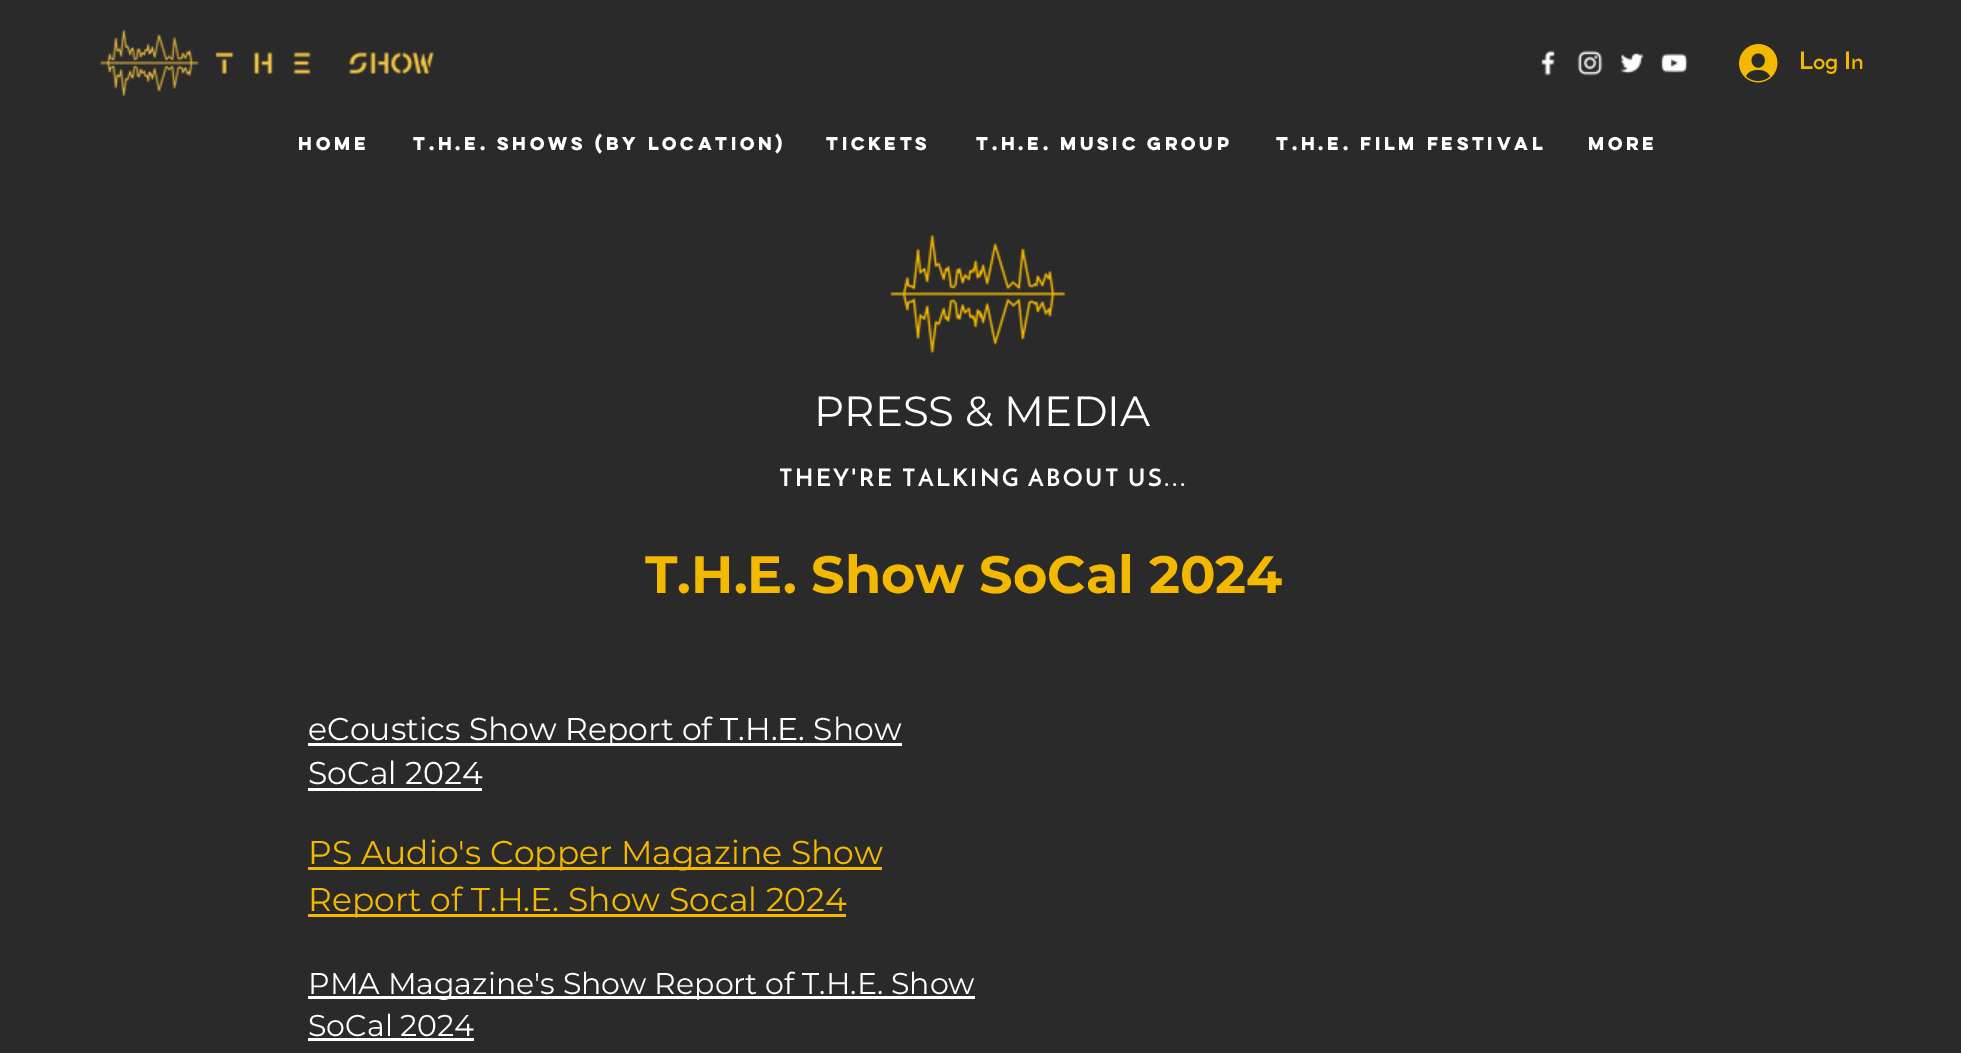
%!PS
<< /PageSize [1961 1053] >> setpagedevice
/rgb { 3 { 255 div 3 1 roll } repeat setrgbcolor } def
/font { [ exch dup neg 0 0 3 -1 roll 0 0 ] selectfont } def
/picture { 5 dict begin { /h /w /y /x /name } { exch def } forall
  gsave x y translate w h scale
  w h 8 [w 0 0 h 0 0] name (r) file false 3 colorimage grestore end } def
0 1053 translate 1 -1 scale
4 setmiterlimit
42 42 42 rgb
0 0 1961 1053 rectfill
(img/1.rgb) 100 29 334 68 picture
(img/2.rgb) 1541 50 14 26 picture
(img/3.rgb) 1577 50 26 26 picture
(img/4.rgb) 1620 52 24 22 picture
(img/5.rgb) 1660 53 28 20 picture
(img/6.rgb) 1739 44 39 39 picture
(img/7.rgb) 889 234 177 119 picture
[
  [308 743 594 3 255 255 255]
  [308 788 174 3 255 255 255]
  [308 867 574 3 243 184 0]
  [308 914 538 3 243 184 0]
  [308 996 667 3 255 255 255]
  [308 1038 166 3 255 255 255]
] { aload pop rgb rectfill } forall
/JosefinSans-Bold 24 font
243 184 0 rgb
1799 69 moveto (Log In) show
/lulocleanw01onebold-Bold 16.5 font
255 255 255 rgb
[
  [(HOME) 298 150]
  [(T.H.E. Shows \(by location\)) 413 150]
  [(TICKETS) 826 150]
  [(T.H.E. MUSIC GROUP) 976 150]
  [(T.H.E. Film Festival) 1276 150]
  [(More) 1588 150]
] { aload pop moveto show } forall
/Montserrat-Regular 42 font
814 426 moveto (PRESS & MEDIA) show
/JosefinSans-Bold 24 font
779 486 moveto 2.4 0 (THEY'RE TALKING ABOUT US...) ashow
/Montserrat-Bold 52.5 font
243 184 0 rgb
645 593 moveto (T.H.E. Show SoCal 2024) show
/Montserrat-Regular 31.5 font
255 255 255 rgb
308 740 moveto (eCoustics Show Report of T.H.E. Show) show
308 784 moveto (SoCal 2024) show
/Montserrat-Regular 33 font
243 184 0 rgb
308 864 moveto (PS Audio's Copper Magazine Show) show
308 911 moveto (Report of T.H.E. Show Socal 2024) show
/Montserrat-Regular 30 font
255 255 255 rgb
308 994 moveto (PMA Magazine's Show Report of T.H.E. Show) show
308 1036 moveto (SoCal 2024) show
showpage
